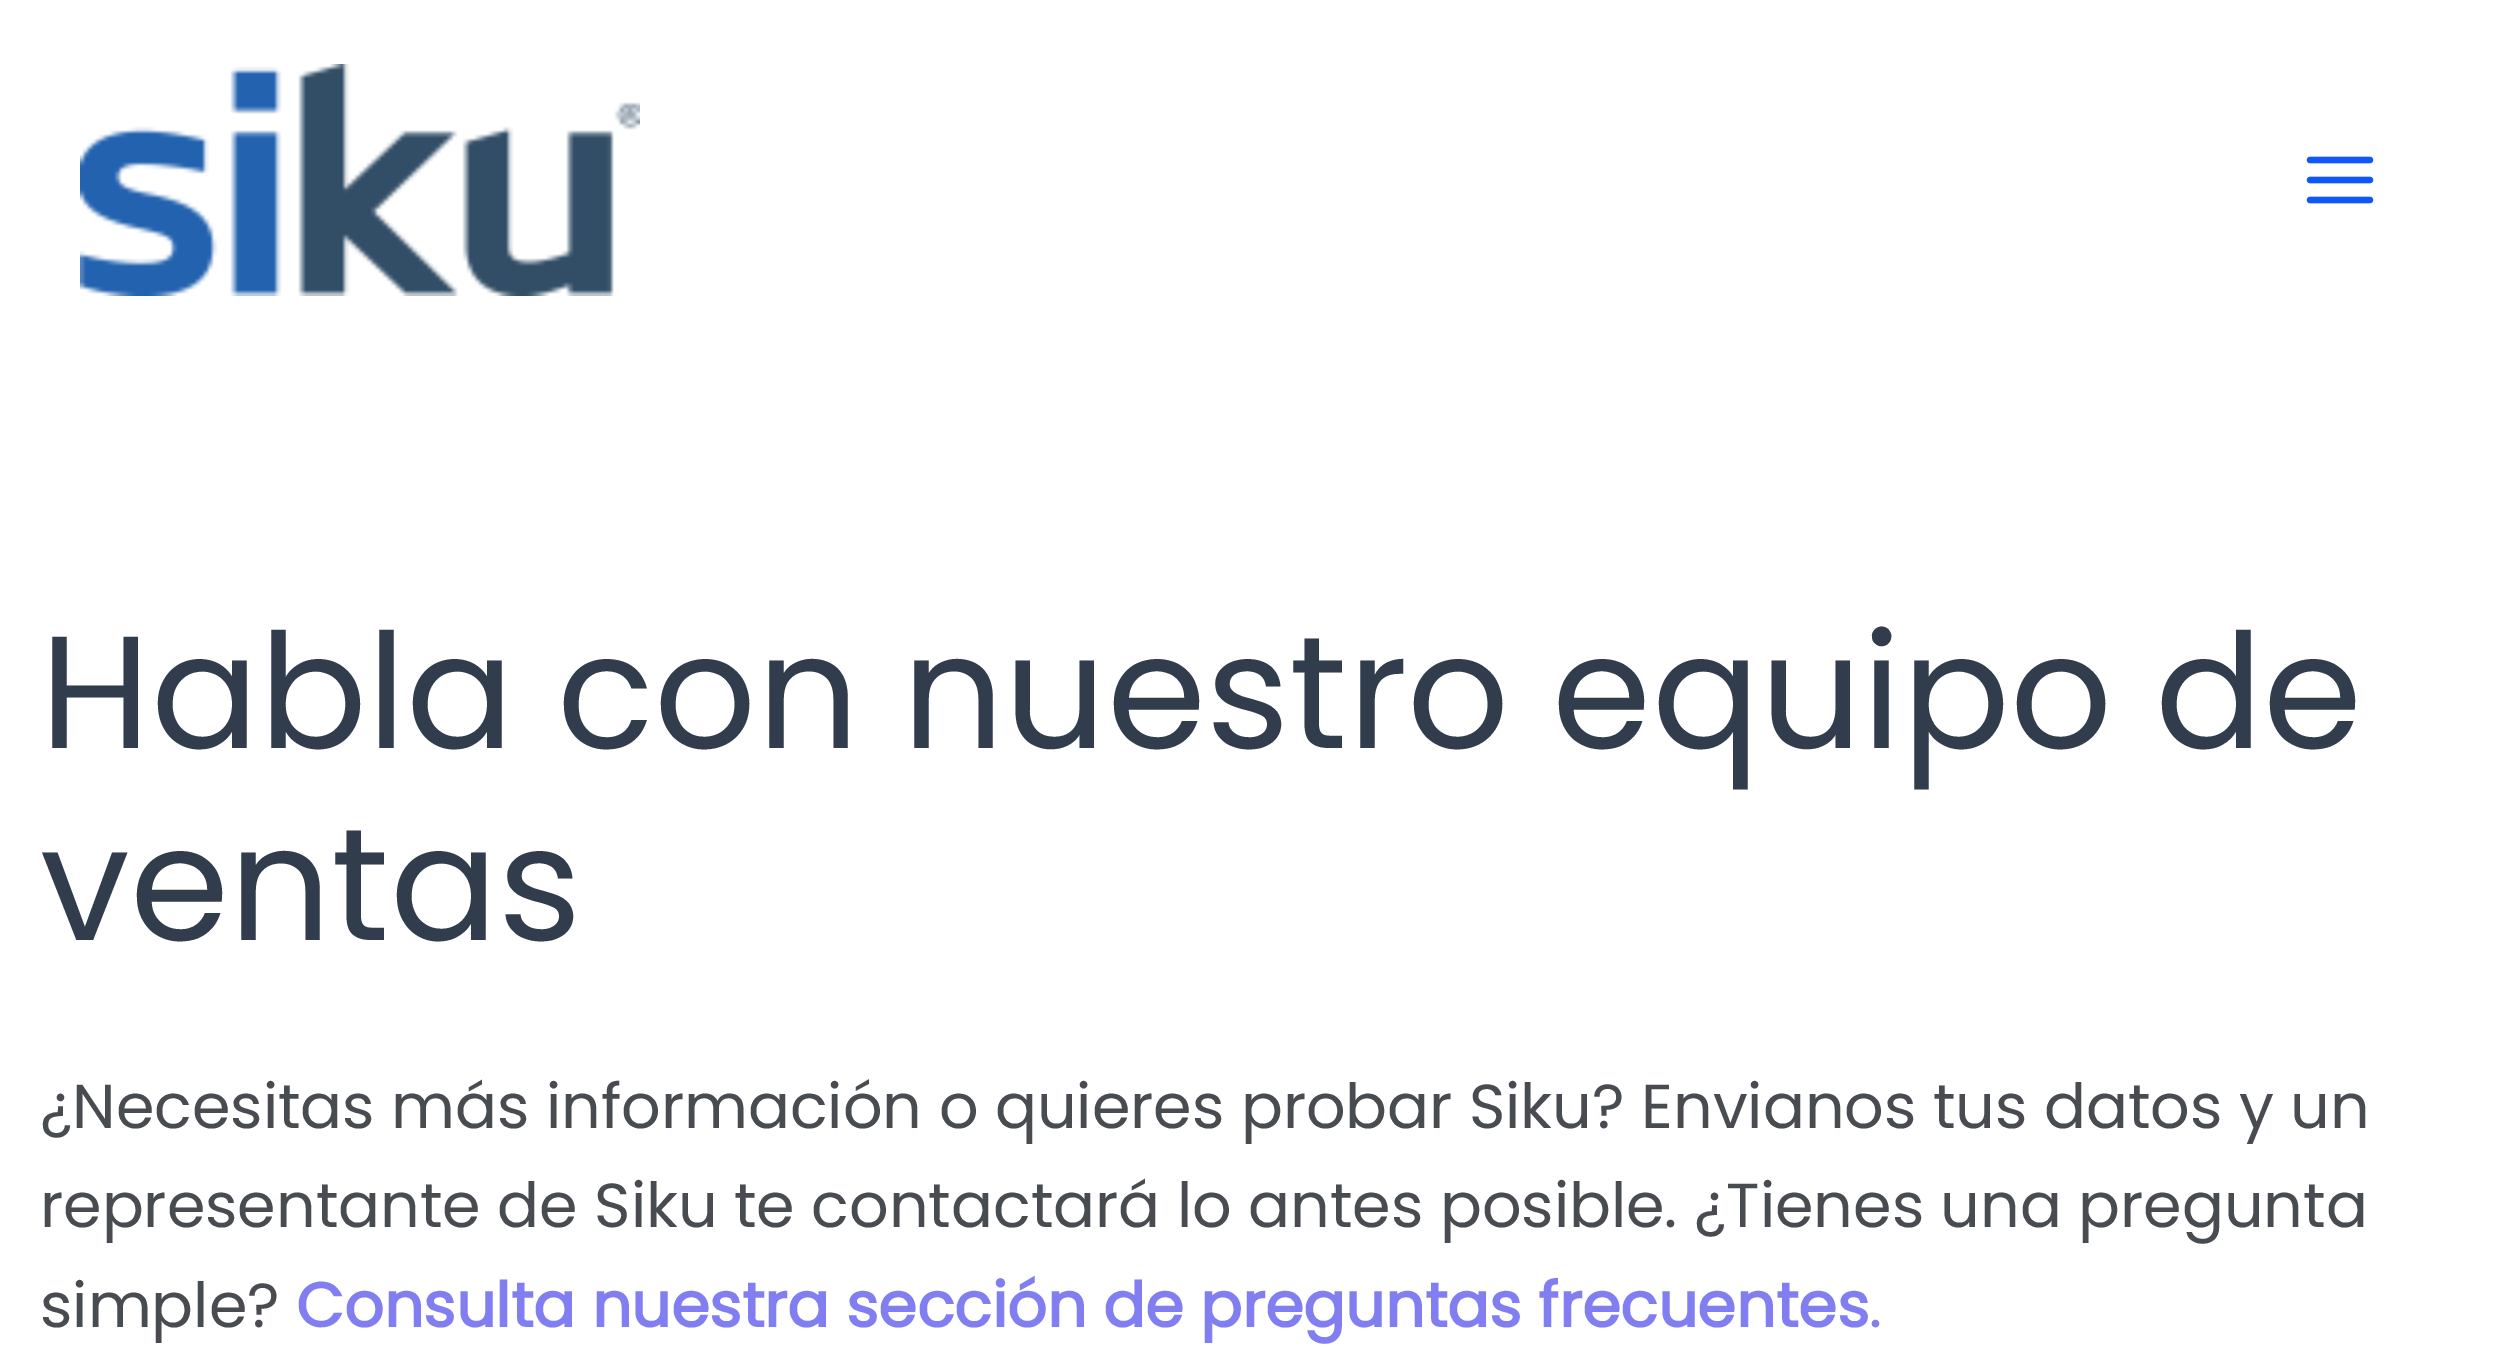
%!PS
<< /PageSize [2506 1350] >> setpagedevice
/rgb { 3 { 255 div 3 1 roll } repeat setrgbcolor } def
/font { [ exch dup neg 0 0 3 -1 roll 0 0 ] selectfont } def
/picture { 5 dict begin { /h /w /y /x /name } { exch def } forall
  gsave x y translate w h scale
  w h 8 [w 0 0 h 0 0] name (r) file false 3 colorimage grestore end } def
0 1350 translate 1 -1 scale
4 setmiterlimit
255 255 255 rgb
0 0 2506 1350 rectfill
(img/1.rgb) 80 64 560 232 picture
(img/2.rgb) 2306 156 68 48 picture
/Poppins-Regular 160 font
49 60 77 rgb
40 748 moveto (Habla con nuestro equipo de) show
40 940 moveto (ventas) show
/Poppins-Regular 62 font
72 76 80 rgb
[
  [(¿Necesitas más información o quieres probar Siku? Envianos tus datos y un) 40 1128]
  [(representante de Siku te contactará lo antes posible. ¿Tienes una pregunta) 40 1227]
  [(simple?) 40 1327]
] { aload pop moveto show } forall
/Poppins-Bold 62 font
129 126 241 rgb
296 1327 moveto (Consulta nuestra sección de preguntas frecuentes) show
/Poppins-Regular 62 font
1869 1327 moveto (.) show
showpage
